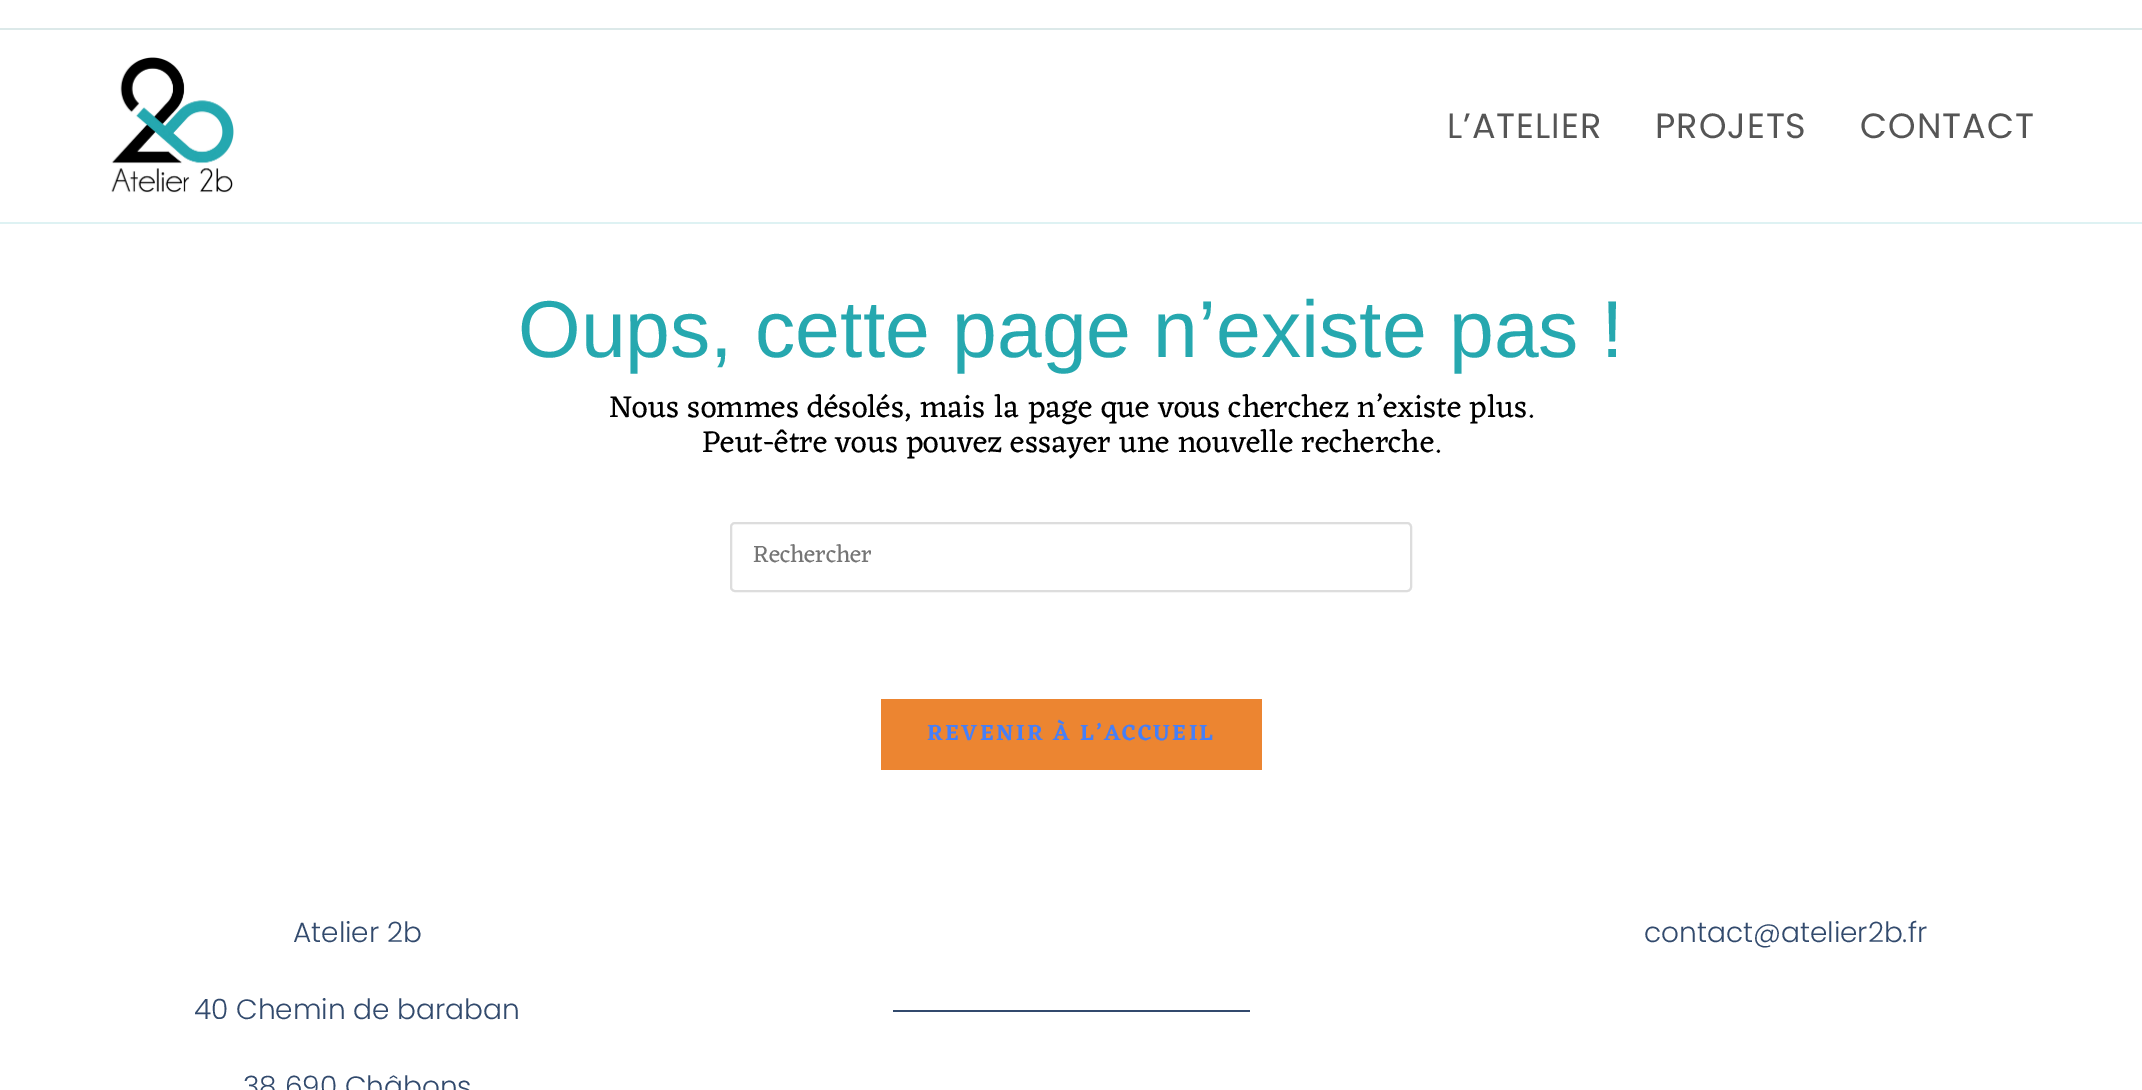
%!PS
<< /PageSize [2142 1090] >> setpagedevice
/rgb { 3 { 255 div 3 1 roll } repeat setrgbcolor } def
/font { [ exch dup neg 0 0 3 -1 roll 0 0 ] selectfont } def
/roundrect { 5 dict begin { /r /h /w /y /x } { exch def } forall
  x r add y moveto x w add y 2 copy h add r arct x w add y h add x 1 index r arct
  x y h add x y r arct x y 2 copy exch w add exch r arct closepath end } def
/picture { 5 dict begin { /h /w /y /x /name } { exch def } forall
  gsave x y translate w h scale
  w h 8 [w 0 0 h 0 0] name (r) file false 3 colorimage grestore end } def
0 1090 translate 1 -1 scale
4 setmiterlimit
255 255 255 rgb
0 0 2142 1090 rectfill
220 233 233 rgb
0 28 2142 2 rectfill
222 242 243 rgb
0 222 2142 2 rectfill
(img/1.rgb) 111 57 123 136 picture
221 221 221 rgb
2 setlinewidth
731 523 680 68 4 roundrect stroke
236 133 49 rgb
881 699 381 71 rectfill
50 74 109 rgb
893 1010 357 2 rectfill
/Poppins-Regular 35 font
85 85 85 rgb
1447 138 moveto 1 0 (L’ATELIER) ashow
1655 138 moveto 1 0 (PROJETS) ashow
1860 138 moveto 1 0 (CONTACT) ashow
/LiberationSans-Regular 80.5 font
38 168 175 rgb
518 357 moveto (Oups, cette page n’existe pas !) show
/Eczar-Regular 31.5 font
0 0 0 rgb
609 417 moveto (Nous sommes désolés, mais la page que vous cherchez n’existe plus.) show
702 452 moveto (Peut-être vous pouvez essayer une nouvelle recherche.) show
/Eczar-Regular 24.5 font
117 117 117 rgb
753 562 moveto (Rechercher) show
/Eczar-SemiBold 22.75 font
70 127 247 rgb
927 740 moveto 2.25 0 (REVENIR À L’ACCUEIL) ashow
/Poppins-Light 28 font
50 74 109 rgb
[
  [(Atelier 2b) 293 942]
  [(40 Chemin de baraban) 194 1019]
  [(38 690 Châbons) 243 1096]
  [(contact@atelier2b.fr) 1644 942]
] { aload pop moveto show } forall
showpage
